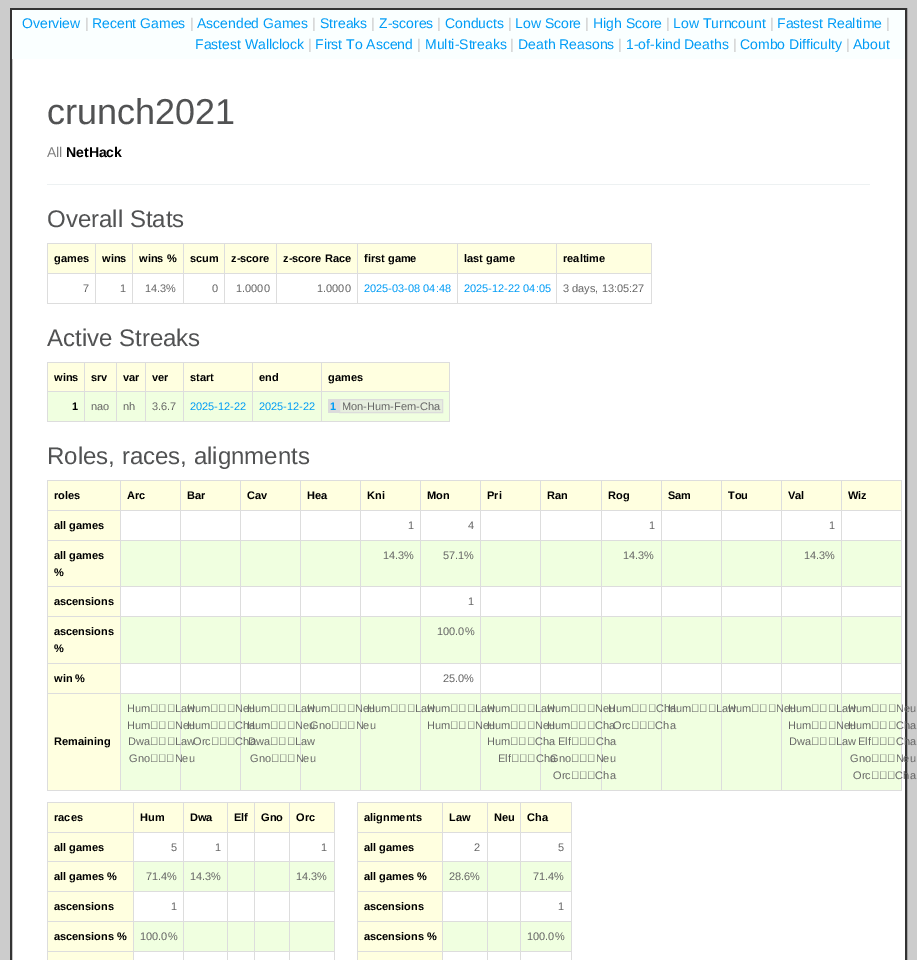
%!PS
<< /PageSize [917 960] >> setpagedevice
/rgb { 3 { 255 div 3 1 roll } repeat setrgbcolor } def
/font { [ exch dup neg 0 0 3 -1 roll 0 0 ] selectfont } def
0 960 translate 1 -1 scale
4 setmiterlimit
204 204 204 rgb
0 0 917 960 rectfill
255 255 255 rgb
12 59 893 901 rectfill
51 51 51 rgb
2 setlinewidth
11 9 895 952 rectstroke
[
  [12 10 893 49 250 255 255]
  [47 184 823 1 237 241 242]
  [48 244 47 29 255 255 224]
  [556 243 96 1 221 221 221]
  [556 273 96 1 221 221 221]
  [651 273 1 31 221 221 221]
  [556 303 96 1 221 221 221]
  [556 273 1 31 221 221 221]
  [457 273 100 1 221 221 221]
  [556 243 1 31 221 221 221]
  [457 243 100 1 221 221 221]
  [457 303 100 1 221 221 221]
  [457 273 1 31 221 221 221]
  [357 273 101 1 221 221 221]
  [457 243 1 31 221 221 221]
  [357 243 101 1 221 221 221]
  [357 303 101 1 221 221 221]
  [357 273 1 31 221 221 221]
  [276 273 82 1 221 221 221]
  [357 243 1 31 221 221 221]
  [276 243 82 1 221 221 221]
  [276 303 82 1 221 221 221]
  [276 273 1 31 221 221 221]
  [224 273 53 1 221 221 221]
  [276 243 1 31 221 221 221]
  [224 243 53 1 221 221 221]
  [224 303 53 1 221 221 221]
  [224 273 1 31 221 221 221]
  [183 273 42 1 221 221 221]
  [224 243 1 31 221 221 221]
  [183 243 42 1 221 221 221]
  [183 303 42 1 221 221 221]
  [183 273 1 31 221 221 221]
  [132 273 52 1 221 221 221]
  [183 243 1 31 221 221 221]
  [132 243 52 1 221 221 221]
  [132 303 52 1 221 221 221]
  [132 273 1 31 221 221 221]
  [95 273 38 1 221 221 221]
  [132 243 1 31 221 221 221]
  [95 243 38 1 221 221 221]
  [95 303 38 1 221 221 221]
  [95 273 1 31 221 221 221]
  [47 273 49 1 221 221 221]
  [95 243 1 31 221 221 221]
  [47 243 49 1 221 221 221]
  [47 303 49 1 221 221 221]
  [47 273 1 31 221 221 221]
  [47 243 1 31 221 221 221]
  [96 244 36 29 255 255 224]
  [133 244 50 29 255 255 224]
  [184 244 40 29 255 255 224]
  [225 244 51 29 255 255 224]
  [277 244 80 29 255 255 224]
  [358 244 99 29 255 255 224]
  [458 244 98 29 255 255 224]
  [557 244 94 29 255 255 224]
  [651 243 1 31 221 221 221]
  [48 363 36 28 255 255 224]
  [321 362 129 1 221 221 221]
  [321 391 129 1 221 221 221]
  [48 392 401 29 240 255 224]
  [449 391 1 31 221 221 221]
  [321 421 129 1 221 221 221]
  [321 391 1 31 221 221 221]
  [252 391 70 1 221 221 221]
  [321 362 1 30 221 221 221]
  [252 362 70 1 221 221 221]
  [252 421 70 1 221 221 221]
  [252 391 1 31 221 221 221]
  [183 391 70 1 221 221 221]
  [252 362 1 30 221 221 221]
  [183 362 70 1 221 221 221]
  [183 421 70 1 221 221 221]
  [183 391 1 31 221 221 221]
  [145 391 39 1 221 221 221]
  [183 362 1 30 221 221 221]
  [145 362 39 1 221 221 221]
  [145 421 39 1 221 221 221]
  [145 391 1 31 221 221 221]
  [116 391 30 1 221 221 221]
  [145 362 1 30 221 221 221]
  [116 362 30 1 221 221 221]
  [116 421 30 1 221 221 221]
  [116 391 1 31 221 221 221]
  [84 391 33 1 221 221 221]
  [116 362 1 30 221 221 221]
  [84 362 33 1 221 221 221]
  [84 421 33 1 221 221 221]
  [84 391 1 31 221 221 221]
  [47 391 38 1 221 221 221]
  [84 362 1 30 221 221 221]
  [47 362 38 1 221 221 221]
  [47 421 38 1 221 221 221]
  [47 391 1 31 221 221 221]
  [47 362 1 30 221 221 221]
  [85 363 31 28 255 255 224]
  [117 363 28 28 255 255 224]
  [146 363 37 28 255 255 224]
  [184 363 68 28 255 255 224]
  [253 363 68 28 255 255 224]
  [322 363 127 28 255 255 224]
  [449 362 1 30 221 221 221]
  [328 399 11 14 220 220 220]
] { aload pop rgb rectfill } forall
230 238 222 rgb
339.5 399.5 moveto 442.5 399.5 lineto 442.5 412.5 lineto 339.5 412.5 lineto closepath gsave fill grestore
220 220 220 rgb
1 setlinewidth
stroke
[
  [48 481 72 29 255 255 224]
  [841 480 61 1 221 221 221]
  [841 510 61 1 221 221 221]
  [841 540 61 1 221 221 221]
  [121 541 780 45 240 255 224]
  [841 586 61 1 221 221 221]
  [841 616 61 1 221 221 221]
  [121 617 780 46 240 255 224]
  [841 663 61 1 221 221 221]
  [841 693 61 1 221 221 221]
  [121 694 780 96 240 255 224]
  [901 693 1 98 221 221 221]
  [841 790 61 1 221 221 221]
  [841 693 1 98 221 221 221]
  [781 693 61 1 221 221 221]
  [841 663 1 31 221 221 221]
  [781 663 61 1 221 221 221]
  [841 616 1 48 221 221 221]
  [781 616 61 1 221 221 221]
  [841 586 1 31 221 221 221]
  [781 586 61 1 221 221 221]
  [841 540 1 47 221 221 221]
  [781 540 61 1 221 221 221]
  [841 510 1 31 221 221 221]
  [781 510 61 1 221 221 221]
  [841 480 1 31 221 221 221]
  [781 480 61 1 221 221 221]
  [781 790 61 1 221 221 221]
  [781 693 1 98 221 221 221]
  [721 693 61 1 221 221 221]
  [781 663 1 31 221 221 221]
  [721 663 61 1 221 221 221]
  [781 616 1 48 221 221 221]
  [721 616 61 1 221 221 221]
  [781 586 1 31 221 221 221]
  [721 586 61 1 221 221 221]
  [781 540 1 47 221 221 221]
  [721 540 61 1 221 221 221]
  [781 510 1 31 221 221 221]
  [721 510 61 1 221 221 221]
  [781 480 1 31 221 221 221]
  [721 480 61 1 221 221 221]
  [721 790 61 1 221 221 221]
  [721 693 1 98 221 221 221]
  [661 693 61 1 221 221 221]
  [721 663 1 31 221 221 221]
  [661 663 61 1 221 221 221]
  [721 616 1 48 221 221 221]
  [661 616 61 1 221 221 221]
  [721 586 1 31 221 221 221]
  [661 586 61 1 221 221 221]
  [721 540 1 47 221 221 221]
  [661 540 61 1 221 221 221]
  [721 510 1 31 221 221 221]
  [661 510 61 1 221 221 221]
  [721 480 1 31 221 221 221]
  [661 480 61 1 221 221 221]
  [661 790 61 1 221 221 221]
  [661 693 1 98 221 221 221]
  [601 693 61 1 221 221 221]
  [661 663 1 31 221 221 221]
  [601 663 61 1 221 221 221]
  [661 616 1 48 221 221 221]
  [601 616 61 1 221 221 221]
  [661 586 1 31 221 221 221]
  [601 586 61 1 221 221 221]
  [661 540 1 47 221 221 221]
  [601 540 61 1 221 221 221]
  [661 510 1 31 221 221 221]
  [601 510 61 1 221 221 221]
  [661 480 1 31 221 221 221]
  [601 480 61 1 221 221 221]
  [601 790 61 1 221 221 221]
  [601 693 1 98 221 221 221]
  [540 693 62 1 221 221 221]
  [601 663 1 31 221 221 221]
  [540 663 62 1 221 221 221]
  [601 616 1 48 221 221 221]
  [540 616 62 1 221 221 221]
  [601 586 1 31 221 221 221]
  [540 586 62 1 221 221 221]
  [601 540 1 47 221 221 221]
  [540 540 62 1 221 221 221]
  [601 510 1 31 221 221 221]
  [540 510 62 1 221 221 221]
  [601 480 1 31 221 221 221]
  [540 480 62 1 221 221 221]
  [540 790 62 1 221 221 221]
  [540 693 1 98 221 221 221]
  [480 693 61 1 221 221 221]
  [540 663 1 31 221 221 221]
  [480 663 61 1 221 221 221]
  [540 616 1 48 221 221 221]
  [480 616 61 1 221 221 221]
  [540 586 1 31 221 221 221]
  [480 586 61 1 221 221 221]
  [540 540 1 47 221 221 221]
  [480 540 61 1 221 221 221]
  [540 510 1 31 221 221 221]
  [480 510 61 1 221 221 221]
  [540 480 1 31 221 221 221]
  [480 480 61 1 221 221 221]
  [480 790 61 1 221 221 221]
  [480 693 1 98 221 221 221]
  [420 693 61 1 221 221 221]
  [480 663 1 31 221 221 221]
  [420 663 61 1 221 221 221]
  [480 616 1 48 221 221 221]
  [420 616 61 1 221 221 221]
  [480 586 1 31 221 221 221]
  [420 586 61 1 221 221 221]
  [480 540 1 47 221 221 221]
  [420 540 61 1 221 221 221]
  [480 510 1 31 221 221 221]
  [420 510 61 1 221 221 221]
  [480 480 1 31 221 221 221]
  [420 480 61 1 221 221 221]
  [420 790 61 1 221 221 221]
  [420 693 1 98 221 221 221]
  [360 693 61 1 221 221 221]
  [420 663 1 31 221 221 221]
  [360 663 61 1 221 221 221]
  [420 616 1 48 221 221 221]
  [360 616 61 1 221 221 221]
  [420 586 1 31 221 221 221]
  [360 586 61 1 221 221 221]
  [420 540 1 47 221 221 221]
  [360 540 61 1 221 221 221]
  [420 510 1 31 221 221 221]
  [360 510 61 1 221 221 221]
  [420 480 1 31 221 221 221]
  [360 480 61 1 221 221 221]
  [360 790 61 1 221 221 221]
  [360 693 1 98 221 221 221]
  [300 693 61 1 221 221 221]
  [360 663 1 31 221 221 221]
  [300 663 61 1 221 221 221]
  [360 616 1 48 221 221 221]
  [300 616 61 1 221 221 221]
  [360 586 1 31 221 221 221]
  [300 586 61 1 221 221 221]
  [360 540 1 47 221 221 221]
  [300 540 61 1 221 221 221]
  [360 510 1 31 221 221 221]
  [300 510 61 1 221 221 221]
  [360 480 1 31 221 221 221]
  [300 480 61 1 221 221 221]
  [300 790 61 1 221 221 221]
  [300 693 1 98 221 221 221]
  [240 693 61 1 221 221 221]
  [300 663 1 31 221 221 221]
  [240 663 61 1 221 221 221]
  [300 616 1 48 221 221 221]
  [240 616 61 1 221 221 221]
  [300 586 1 31 221 221 221]
  [240 586 61 1 221 221 221]
  [300 540 1 47 221 221 221]
  [240 540 61 1 221 221 221]
  [300 510 1 31 221 221 221]
  [240 510 61 1 221 221 221]
  [300 480 1 31 221 221 221]
  [240 480 61 1 221 221 221]
  [240 790 61 1 221 221 221]
  [240 693 1 98 221 221 221]
  [180 693 61 1 221 221 221]
  [240 663 1 31 221 221 221]
  [180 663 61 1 221 221 221]
  [240 616 1 48 221 221 221]
  [180 616 61 1 221 221 221]
  [240 586 1 31 221 221 221]
  [180 586 61 1 221 221 221]
  [240 540 1 47 221 221 221]
  [180 540 61 1 221 221 221]
  [240 510 1 31 221 221 221]
  [180 510 61 1 221 221 221]
  [240 480 1 31 221 221 221]
  [180 480 61 1 221 221 221]
  [180 790 61 1 221 221 221]
  [180 693 1 98 221 221 221]
  [120 693 61 1 221 221 221]
  [180 663 1 31 221 221 221]
  [120 663 61 1 221 221 221]
  [180 616 1 48 221 221 221]
  [120 616 61 1 221 221 221]
  [180 586 1 31 221 221 221]
  [120 586 61 1 221 221 221]
  [180 540 1 47 221 221 221]
  [120 540 61 1 221 221 221]
  [180 510 1 31 221 221 221]
  [120 510 61 1 221 221 221]
  [180 480 1 31 221 221 221]
  [120 480 61 1 221 221 221]
  [120 790 61 1 221 221 221]
  [120 693 1 98 221 221 221]
  [47 693 74 1 221 221 221]
  [120 663 1 31 221 221 221]
  [47 663 74 1 221 221 221]
  [120 616 1 48 221 221 221]
  [47 616 74 1 221 221 221]
  [120 586 1 31 221 221 221]
  [47 586 74 1 221 221 221]
  [120 540 1 47 221 221 221]
  [47 540 74 1 221 221 221]
  [120 510 1 31 221 221 221]
  [47 510 74 1 221 221 221]
  [120 480 1 31 221 221 221]
  [47 480 74 1 221 221 221]
  [47 790 74 1 221 221 221]
  [47 693 1 98 221 221 221]
  [47 663 1 31 221 221 221]
  [47 616 1 48 221 221 221]
  [47 586 1 31 221 221 221]
  [47 540 1 47 221 221 221]
  [47 510 1 31 221 221 221]
  [47 480 1 31 221 221 221]
  [121 481 59 29 255 255 224]
  [181 481 59 29 255 255 224]
  [241 481 59 29 255 255 224]
  [301 481 59 29 255 255 224]
  [361 481 59 29 255 255 224]
  [421 481 59 29 255 255 224]
  [481 481 59 29 255 255 224]
  [541 481 60 29 255 255 224]
  [602 481 59 29 255 255 224]
  [662 481 59 29 255 255 224]
  [722 481 59 29 255 255 224]
  [782 481 59 29 255 255 224]
  [842 481 59 29 255 255 224]
  [901 663 1 31 221 221 221]
  [901 616 1 48 221 221 221]
  [901 586 1 31 221 221 221]
  [901 540 1 47 221 221 221]
  [901 510 1 31 221 221 221]
  [901 480 1 31 221 221 221]
  [48 511 72 29 255 255 224]
  [48 541 72 45 255 255 224]
  [48 587 72 29 255 255 224]
  [48 617 72 46 255 255 224]
  [48 664 72 29 255 255 224]
  [48 694 72 96 255 255 224]
  [48 803 85 29 255 255 224]
  [289 802 46 1 221 221 221]
  [289 832 46 1 221 221 221]
  [289 861 46 1 221 221 221]
  [134 862 200 29 240 255 224]
  [289 891 46 1 221 221 221]
  [289 921 46 1 221 221 221]
  [134 922 200 29 240 255 224]
  [289 951 46 1 221 221 221]
  [289 951 1 9 221 221 221]
  [254 951 36 1 221 221 221]
  [289 921 1 31 221 221 221]
  [254 921 36 1 221 221 221]
  [289 891 1 31 221 221 221]
  [254 891 36 1 221 221 221]
  [289 861 1 31 221 221 221]
  [254 861 36 1 221 221 221]
  [289 832 1 30 221 221 221]
  [254 832 36 1 221 221 221]
  [289 802 1 31 221 221 221]
  [254 802 36 1 221 221 221]
  [254 951 1 9 221 221 221]
  [227 951 28 1 221 221 221]
  [254 921 1 31 221 221 221]
  [227 921 28 1 221 221 221]
  [254 891 1 31 221 221 221]
  [227 891 28 1 221 221 221]
  [254 861 1 31 221 221 221]
  [227 861 28 1 221 221 221]
  [254 832 1 30 221 221 221]
  [227 832 28 1 221 221 221]
  [254 802 1 31 221 221 221]
  [227 802 28 1 221 221 221]
  [227 951 1 9 221 221 221]
  [183 951 45 1 221 221 221]
  [227 921 1 31 221 221 221]
  [183 921 45 1 221 221 221]
  [227 891 1 31 221 221 221]
  [183 891 45 1 221 221 221]
  [227 861 1 31 221 221 221]
  [183 861 45 1 221 221 221]
  [227 832 1 30 221 221 221]
  [183 832 45 1 221 221 221]
  [227 802 1 31 221 221 221]
  [183 802 45 1 221 221 221]
  [183 951 1 9 221 221 221]
  [133 951 51 1 221 221 221]
  [183 921 1 31 221 221 221]
  [133 921 51 1 221 221 221]
  [183 891 1 31 221 221 221]
  [133 891 51 1 221 221 221]
  [183 861 1 31 221 221 221]
  [133 861 51 1 221 221 221]
  [183 832 1 30 221 221 221]
  [133 832 51 1 221 221 221]
  [183 802 1 31 221 221 221]
  [133 802 51 1 221 221 221]
  [133 951 1 9 221 221 221]
  [47 951 87 1 221 221 221]
  [133 921 1 31 221 221 221]
  [47 921 87 1 221 221 221]
  [133 891 1 31 221 221 221]
  [47 891 87 1 221 221 221]
  [133 861 1 31 221 221 221]
  [47 861 87 1 221 221 221]
  [133 832 1 30 221 221 221]
  [47 832 87 1 221 221 221]
  [133 802 1 31 221 221 221]
  [47 802 87 1 221 221 221]
  [47 951 1 9 221 221 221]
  [47 921 1 31 221 221 221]
  [47 891 1 31 221 221 221]
  [47 861 1 31 221 221 221]
  [47 832 1 30 221 221 221]
  [47 802 1 31 221 221 221]
  [134 803 49 29 255 255 224]
  [184 803 43 29 255 255 224]
  [228 803 26 29 255 255 224]
  [255 803 34 29 255 255 224]
  [290 803 44 29 255 255 224]
  [334 951 1 9 221 221 221]
  [334 921 1 31 221 221 221]
  [334 891 1 31 221 221 221]
  [334 861 1 31 221 221 221]
  [334 832 1 30 221 221 221]
  [334 802 1 31 221 221 221]
  [48 833 85 28 255 255 224]
  [48 862 85 29 255 255 224]
  [48 892 85 29 255 255 224]
  [48 922 85 29 255 255 224]
  [48 952 85 8 255 255 224]
  [358 803 84 29 255 255 224]
  [520 802 52 1 221 221 221]
  [520 832 52 1 221 221 221]
  [520 861 52 1 221 221 221]
  [443 862 128 29 240 255 224]
  [520 891 52 1 221 221 221]
  [520 921 52 1 221 221 221]
  [443 922 128 29 240 255 224]
  [520 951 52 1 221 221 221]
  [520 951 1 9 221 221 221]
  [487 951 34 1 221 221 221]
  [520 921 1 31 221 221 221]
  [487 921 34 1 221 221 221]
  [520 891 1 31 221 221 221]
  [487 891 34 1 221 221 221]
  [520 861 1 31 221 221 221]
  [487 861 34 1 221 221 221]
  [520 832 1 30 221 221 221]
  [487 832 34 1 221 221 221]
  [520 802 1 31 221 221 221]
  [487 802 34 1 221 221 221]
  [487 951 1 9 221 221 221]
  [442 951 46 1 221 221 221]
  [487 921 1 31 221 221 221]
  [442 921 46 1 221 221 221]
  [487 891 1 31 221 221 221]
  [442 891 46 1 221 221 221]
  [487 861 1 31 221 221 221]
  [442 861 46 1 221 221 221]
  [487 832 1 30 221 221 221]
  [442 832 46 1 221 221 221]
  [487 802 1 31 221 221 221]
  [442 802 46 1 221 221 221]
  [442 951 1 9 221 221 221]
  [357 951 86 1 221 221 221]
  [442 921 1 31 221 221 221]
  [357 921 86 1 221 221 221]
  [442 891 1 31 221 221 221]
  [357 891 86 1 221 221 221]
  [442 861 1 31 221 221 221]
  [357 861 86 1 221 221 221]
  [442 832 1 30 221 221 221]
  [357 832 86 1 221 221 221]
  [442 802 1 31 221 221 221]
  [357 802 86 1 221 221 221]
  [357 951 1 9 221 221 221]
  [357 921 1 31 221 221 221]
  [357 891 1 31 221 221 221]
  [357 861 1 31 221 221 221]
  [357 832 1 30 221 221 221]
  [357 802 1 31 221 221 221]
  [443 803 44 29 255 255 224]
  [488 803 32 29 255 255 224]
  [521 803 50 29 255 255 224]
  [571 951 1 9 221 221 221]
  [571 921 1 31 221 221 221]
  [571 891 1 31 221 221 221]
  [571 861 1 31 221 221 221]
  [571 832 1 30 221 221 221]
  [571 802 1 31 221 221 221]
  [358 833 84 28 255 255 224]
  [358 862 84 29 255 255 224]
  [358 892 84 29 255 255 224]
  [358 922 84 29 255 255 224]
  [358 952 84 8 255 255 224]
] { aload pop rgb rectfill } forall
/LiberationSans-Regular 14 font
0 156 246 rgb
22 28 moveto (Overview) show
204 204 204 rgb
85 28 moveto (|) show
0 156 246 rgb
92 28 moveto (Recent Games) show
204 204 204 rgb
190 28 moveto (|) show
0 156 246 rgb
197 28 moveto (Ascended Games) show
204 204 204 rgb
312 28 moveto (|) show
0 156 246 rgb
320 28 moveto (Streaks) show
204 204 204 rgb
371 28 moveto (|) show
0 156 246 rgb
379 28 moveto (Z-scores) show
204 204 204 rgb
437 28 moveto (|) show
0 156 246 rgb
445 28 moveto (Conducts) show
204 204 204 rgb
508 28 moveto (|) show
0 156 246 rgb
515 28 moveto (Low Score) show
204 204 204 rgb
585 28 moveto (|) show
0 156 246 rgb
593 28 moveto (High Score) show
204 204 204 rgb
666 28 moveto (|) show
0 156 246 rgb
673 28 moveto (Low Turncount) show
204 204 204 rgb
770 28 moveto (|) show
0 156 246 rgb
777 28 moveto (Fastest Realtime) show
204 204 204 rgb
886 28 moveto (|) show
0 156 246 rgb
195 49 moveto (Fastest Wallclock) show
204 204 204 rgb
308 49 moveto (|) show
0 156 246 rgb
315 49 moveto (First To Ascend) show
204 204 204 rgb
417 49 moveto (|) show
0 156 246 rgb
425 49 moveto (Multi-Streaks) show
204 204 204 rgb
510 49 moveto (|) show
0 156 246 rgb
518 49 moveto (Death Reasons) show
204 204 204 rgb
618 49 moveto (|) show
0 156 246 rgb
626 49 moveto (1-of-kind Deaths) show
204 204 204 rgb
733 49 moveto (|) show
0 156 246 rgb
740 49 moveto (Combo Difficulty) show
204 204 204 rgb
846 49 moveto (|) show
0 156 246 rgb
853 49 moveto (About) show
/LiberationSans-Regular 36 font
81 82 83 rgb
47 124 moveto (crunch2021) show
/LiberationSans-Regular 14 font
128 128 128 rgb
47 157 moveto (All) show
/LiberationSans-Bold 14 font
0 0 0 rgb
66 157 moveto (NetHack) show
/LiberationSans-Regular 24 font
81 82 83 rgb
47 227 moveto (Overall Stats) show
/LiberationSans-Bold 11 font
0 0 0 rgb
[
  [(games) 54 262]
  [(wins) 102 262]
  [(wins %) 139 262]
  [(scum) 190 262]
  [(z-score) 231 262]
  [(z-score Race) 283 262]
  [(first game) 364 262]
  [(last game) 464 262]
  [(realtime) 563 262]
] { aload pop moveto show } forall
/LiberationSans-Regular 11 font
102 102 102 rgb
[
  [(7) 83 292]
  [(1) 120 292]
  [(14.3%) 145 292]
  [(0) 212 292]
  [(1.0000) 236 292]
  [(1.0000) 317 292]
] { aload pop moveto show } forall
0 156 246 rgb
364 292 moveto (2025-03-08 04:48) show
464 292 moveto (2025-12-22 04:05) show
102 102 102 rgb
563 292 moveto (3 days, 13:05:27) show
/LiberationSans-Regular 24 font
81 82 83 rgb
47 346 moveto (Active Streaks) show
/LiberationSans-Bold 11 font
0 0 0 rgb
[
  [(wins) 54 381]
  [(srv) 91 381]
  [(var) 123 381]
  [(ver) 152 381]
  [(start) 190 381]
  [(end) 259 381]
  [(games) 328 381]
  [(1) 72 410]
] { aload pop moveto show } forall
/LiberationSans-Regular 11 font
102 102 102 rgb
[
  [(nao) 91 410]
  [(nh) 123 410]
  [(3.6.7) 152 410]
] { aload pop moveto show } forall
0 156 246 rgb
190 410 moveto (2025-12-22) show
259 410 moveto (2025-12-22) show
/LiberationSans-Bold 11 font
330 410 moveto (1) show
/LiberationSans-Regular 11 font
102 102 102 rgb
342 410 moveto (Mon-Hum-Fem-Cha) show
/LiberationSans-Regular 24 font
81 82 83 rgb
47 464 moveto (Roles, races, alignments) show
/LiberationSans-Bold 11 font
0 0 0 rgb
[
  [(roles) 54 499]
  [(Arc) 127 499]
  [(Bar) 187 499]
  [(Cav) 247 499]
  [(Hea) 307 499]
  [(Kni) 367 499]
  [(Mon) 427 499]
  [(Pri) 487 499]
  [(Ran) 547 499]
  [(Rog) 608 499]
  [(Sam) 668 499]
  [(Tou) 728 499]
  [(Val) 788 499]
  [(Wiz) 848 499]
  [(all games) 54 529]
] { aload pop moveto show } forall
/LiberationSans-Regular 11 font
102 102 102 rgb
[
  [(1) 408 529]
  [(4) 468 529]
  [(1) 649 529]
  [(1) 829 529]
] { aload pop moveto show } forall
/LiberationSans-Bold 11 font
0 0 0 rgb
54 559 moveto (all games) show
54 576 moveto (%) show
/LiberationSans-Regular 11 font
102 102 102 rgb
[
  [(14.3%) 383 559]
  [(57.1%) 443 559]
  [(14.3%) 623 559]
  [(14.3%) 804 559]
] { aload pop moveto show } forall
/LiberationSans-Bold 11 font
0 0 0 rgb
54 605 moveto (ascensions) show
/LiberationSans-Regular 11 font
102 102 102 rgb
468 605 moveto (1) show
/LiberationSans-Bold 11 font
0 0 0 rgb
54 635 moveto (ascensions) show
54 652 moveto (%) show
/LiberationSans-Regular 11 font
102 102 102 rgb
437 635 moveto (100.0%) show
/LiberationSans-Bold 11 font
0 0 0 rgb
54 682 moveto (win %) show
/LiberationSans-Regular 11 font
102 102 102 rgb
443 682 moveto (25.0%) show
/LiberationSans-Bold 11 font
0 0 0 rgb
54 745 moveto (Remaining) show
/LiberationSans-Regular 11 font
102 102 102 rgb
[
  [(Hum‑Law) 127 712]
  [(Hum‑Neu) 127 729]
  [(Dwa‑Law) 128 745]
  [(Gno‑Neu) 129 762]
  [(Hum‑Neu) 187 712]
  [(Hum‑Cha) 187 729]
  [(Orc‑Cha) 193 745]
  [(Hum‑Law) 247 712]
  [(Hum‑Neu) 247 729]
  [(Dwa‑Law) 248 745]
  [(Gno‑Neu) 250 762]
  [(Hum‑Neu) 307 712]
  [(Gno‑Neu) 310 729]
  [(Hum‑Law) 367 712]
  [(Hum‑Law) 427 712]
  [(Hum‑Neu) 427 729]
  [(Hum‑Law) 487 712]
  [(Hum‑Neu) 487 729]
  [(Hum‑Cha) 487 745]
  [(Elf‑Cha) 498 762]
  [(Hum‑Neu) 547 712]
  [(Hum‑Cha) 547 729]
  [(Elf‑Cha) 558 745]
  [(Gno‑Neu) 550 762]
  [(Orc‑Cha) 553 779]
  [(Hum‑Cha) 608 712]
  [(Orc‑Cha) 613 729]
  [(Hum‑Law) 668 712]
  [(Hum‑Neu) 728 712]
  [(Hum‑Law) 788 712]
  [(Hum‑Neu) 788 729]
  [(Dwa‑Law) 789 745]
  [(Hum‑Neu) 848 712]
  [(Hum‑Cha) 848 729]
  [(Elf‑Cha) 858 745]
  [(Gno‑Neu) 850 762]
  [(Orc‑Cha) 853 779]
] { aload pop moveto show } forall
/LiberationSans-Bold 11 font
0 0 0 rgb
[
  [(races) 54 821]
  [(Hum) 140 821]
  [(Dwa) 190 821]
  [(Elf) 234 821]
  [(Gno) 261 821]
  [(Orc) 296 821]
  [(all games) 54 851]
] { aload pop moveto show } forall
/LiberationSans-Regular 11 font
102 102 102 rgb
[
  [(5) 171 851]
  [(1) 215 851]
  [(1) 321 851]
] { aload pop moveto show } forall
/LiberationSans-Bold 11 font
0 0 0 rgb
54 880 moveto (all games %) show
/LiberationSans-Regular 11 font
102 102 102 rgb
[
  [(71.4%) 146 880]
  [(14.3%) 190 880]
  [(14.3%) 296 880]
] { aload pop moveto show } forall
/LiberationSans-Bold 11 font
0 0 0 rgb
54 910 moveto (ascensions) show
/LiberationSans-Regular 11 font
102 102 102 rgb
171 910 moveto (1) show
/LiberationSans-Bold 11 font
0 0 0 rgb
54 940 moveto (ascensions %) show
/LiberationSans-Regular 11 font
102 102 102 rgb
140 940 moveto (100.0%) show
/LiberationSans-Bold 11 font
0 0 0 rgb
[
  [(alignments) 364 821]
  [(Law) 449 821]
  [(Neu) 494 821]
  [(Cha) 527 821]
  [(all games) 364 851]
] { aload pop moveto show } forall
/LiberationSans-Regular 11 font
102 102 102 rgb
474 851 moveto (2) show
558 851 moveto (5) show
/LiberationSans-Bold 11 font
0 0 0 rgb
364 880 moveto (all games %) show
/LiberationSans-Regular 11 font
102 102 102 rgb
449 880 moveto (28.6%) show
533 880 moveto (71.4%) show
/LiberationSans-Bold 11 font
0 0 0 rgb
364 910 moveto (ascensions) show
/LiberationSans-Regular 11 font
102 102 102 rgb
558 910 moveto (1) show
/LiberationSans-Bold 11 font
0 0 0 rgb
364 940 moveto (ascensions %) show
/LiberationSans-Regular 11 font
102 102 102 rgb
527 940 moveto (100.0%) show
showpage
